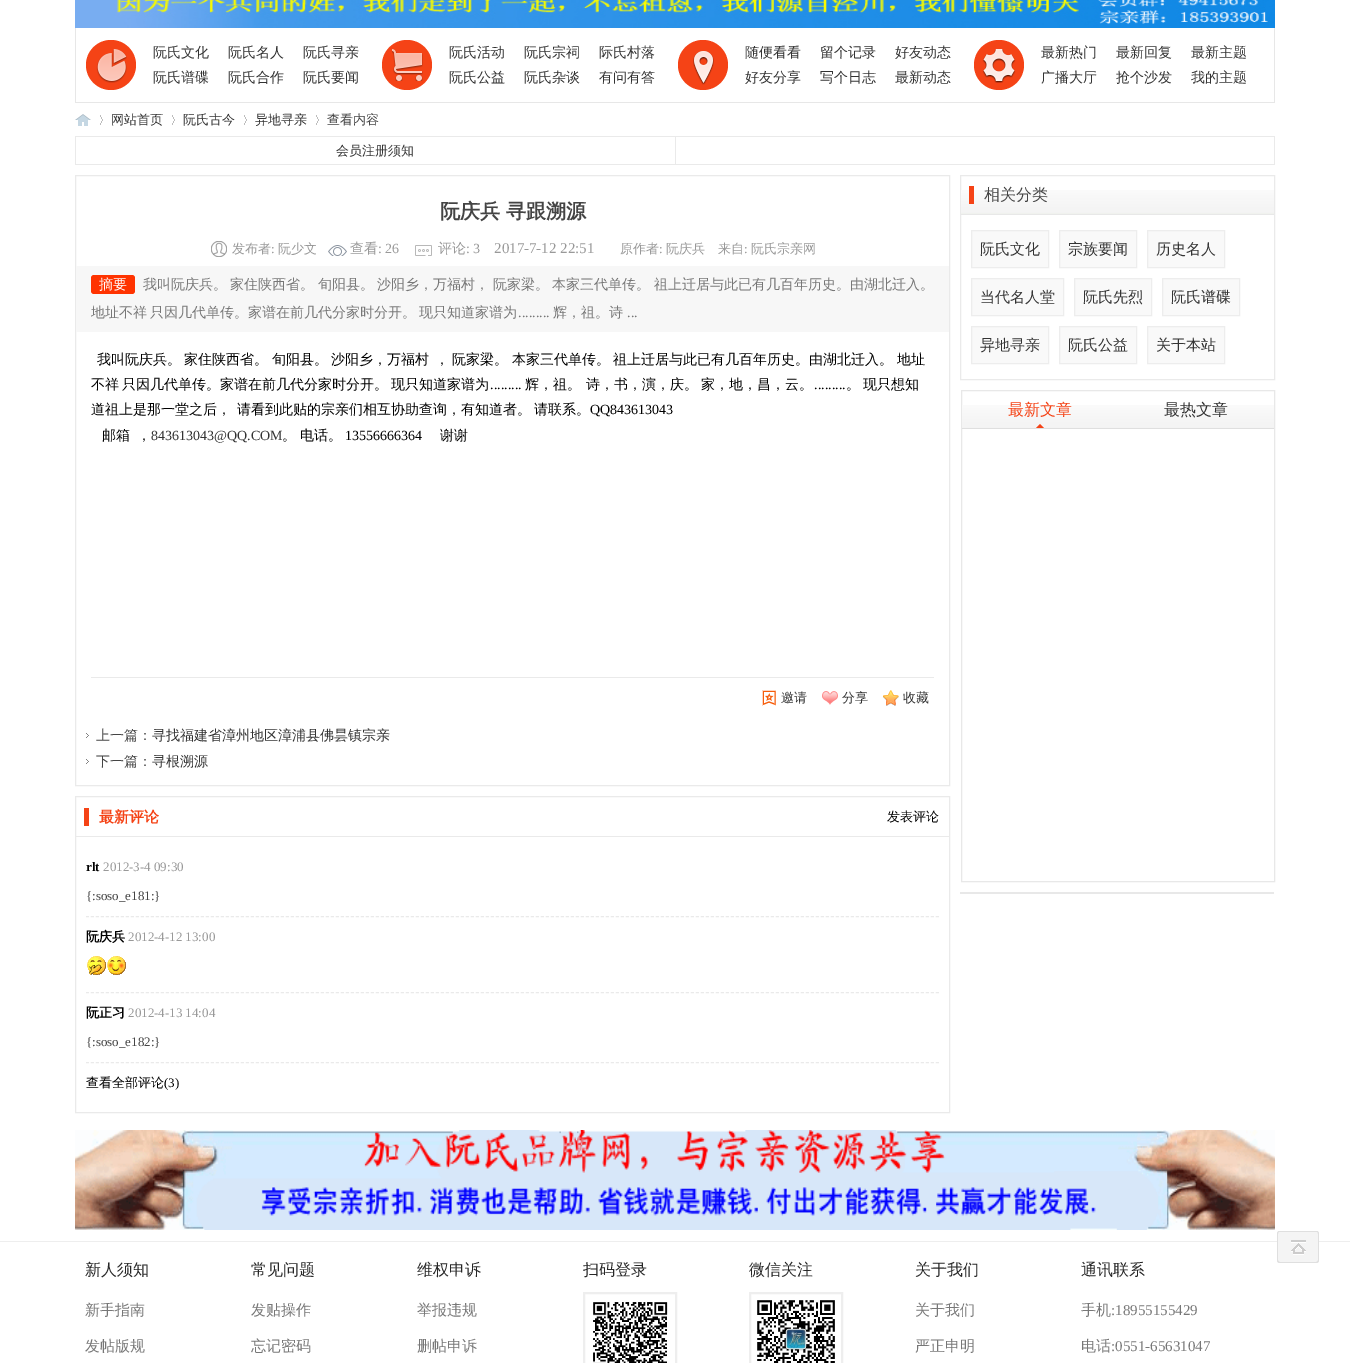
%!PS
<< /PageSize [1350 1363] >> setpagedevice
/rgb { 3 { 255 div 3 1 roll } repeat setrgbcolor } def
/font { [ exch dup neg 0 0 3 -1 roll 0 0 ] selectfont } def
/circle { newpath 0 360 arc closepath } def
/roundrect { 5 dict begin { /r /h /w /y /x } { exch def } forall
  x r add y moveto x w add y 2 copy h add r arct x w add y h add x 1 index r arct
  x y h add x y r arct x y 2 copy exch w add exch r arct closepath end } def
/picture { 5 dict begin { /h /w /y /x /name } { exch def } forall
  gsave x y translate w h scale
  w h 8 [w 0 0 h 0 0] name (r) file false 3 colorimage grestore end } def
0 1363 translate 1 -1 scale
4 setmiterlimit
255 255 255 rgb
0 0 1350 1363 rectfill
(img/1.rgb) 75 0 1200 28 picture
[
  [1274 28 1 75 231 231 231]
  [75 102 1200 1 231 231 231]
  [75 28 1 75 231 231 231]
] { aload pop rgb rectfill } forall
245 67 22 rgb
111 65 25 circle fill
(img/2.rgb) 96 49 31 34 picture
407 65 25 circle fill
(img/3.rgb) 392 49 31 32 picture
703 65 25 circle fill
(img/4.rgb) 693 51 21 34 picture
999 65 25 circle fill
(img/5.rgb) 982 49 34 34 picture
(img/6.rgb) 75 114 16 12 picture
(img/7.rgb) 100 115 3 10 picture
(img/7.rgb) 172 115 3 10 picture
(img/7.rgb) 244 115 3 10 picture
(img/7.rgb) 316 115 3 10 picture
[
  [675 136 600 1 234 234 234]
  [1274 136 1 29 234 234 234]
  [675 164 600 1 234 234 234]
  [675 136 1 29 234 234 234]
  [75 136 601 1 234 234 234]
  [75 164 601 1 234 234 234]
  [75 136 1 29 234 234 234]
] { aload pop rgb rectfill } forall
75.5 175.5 874 610 rectstroke
(img/8.rgb) 211 241 16 16 picture
(img/9.rgb) 328 245 19 11 picture
(img/10.rgb) 415 245 17 11 picture
247 247 247 rgb
76 266 873 66 rectfill
255 51 0 rgb
91 275 44 19 3 roundrect fill
234 234 234 rgb
91 677 843 1 rectfill
(img/11.rgb) 762 690 14 16 picture
(img/12.rgb) 822 691 16 14 picture
(img/13.rgb) 883 690 16 16 picture
(img/14.rgb) 86 733 3 5 picture
(img/14.rgb) 86 759 3 5 picture
75.5 796.5 874 316 rectstroke
76 836 873 1 rectfill
245 67 22 rgb
84 808 5 18 rectfill
234 234 234 rgb
[3 2] 0 setdash
86 916.5 moveto 939 916.5 lineto stroke
86 992.5 moveto 939 992.5 lineto stroke
(img/15.rgb) 87 956 19 19 picture
(img/16.rgb) 107 956 19 19 picture
86 1062.5 moveto 939 1062.5 lineto stroke
[] 0 setdash
960.5 175.5 314 204 rectstroke
(img/17.rgb) 961 190 313 24 picture
232 232 232 rgb
961 214 313 1 rectfill
245 67 22 rgb
969 186 5 18 rectfill
249 249 249 rgb
971.5 230.5 moveto 1048.5 230.5 lineto 1048.5 267.5 lineto 971.5 267.5 lineto closepath gsave fill grestore
237 237 237 rgb
stroke
249 249 249 rgb
1059.5 230.5 moveto 1136.5 230.5 lineto 1136.5 267.5 lineto 1059.5 267.5 lineto closepath gsave fill grestore
237 237 237 rgb
stroke
249 249 249 rgb
1147.5 230.5 moveto 1224.5 230.5 lineto 1224.5 267.5 lineto 1147.5 267.5 lineto closepath gsave fill grestore
237 237 237 rgb
stroke
249 249 249 rgb
971.5 278.5 moveto 1063.5 278.5 lineto 1063.5 315.5 lineto 971.5 315.5 lineto closepath gsave fill grestore
237 237 237 rgb
stroke
249 249 249 rgb
1074.5 278.5 moveto 1151.5 278.5 lineto 1151.5 315.5 lineto 1074.5 315.5 lineto closepath gsave fill grestore
237 237 237 rgb
stroke
249 249 249 rgb
1162.5 278.5 moveto 1239.5 278.5 lineto 1239.5 315.5 lineto 1162.5 315.5 lineto closepath gsave fill grestore
237 237 237 rgb
stroke
249 249 249 rgb
971.5 326.5 moveto 1048.5 326.5 lineto 1048.5 363.5 lineto 971.5 363.5 lineto closepath gsave fill grestore
237 237 237 rgb
stroke
249 249 249 rgb
1059.5 326.5 moveto 1136.5 326.5 lineto 1136.5 363.5 lineto 1059.5 363.5 lineto closepath gsave fill grestore
237 237 237 rgb
stroke
249 249 249 rgb
1147.5 326.5 moveto 1224.5 326.5 lineto 1224.5 363.5 lineto 1147.5 363.5 lineto closepath gsave fill grestore
237 237 237 rgb
stroke
232 232 232 rgb
961.5 390.5 313 491 rectstroke
(img/18.rgb) 962 405 312 23 picture
223 223 223 rgb
962 428 312 1 rectfill
gsave
962 391 156 37 rectclip
245 67 22 rgb
1045 429 moveto 1035 429 lineto 1040 424 lineto closepath fill
grestore
232 232 232 rgb
960 892 314 2 rectfill
(img/19.rgb) 75 1130 1200 100 picture
238 238 238 rgb
0 1241 1350 1 rectfill
244 244 244 rgb
1277 1231 42 32 3 roundrect fill
223 223 223 rgb
1280 1231 moveto 1316 1231 lineto 1318 1231 1319 1232 1319 1234 curveto 1319 1260 lineto 1319 1262 1318 1263 1316 1263 curveto 1280 1263 lineto 1278 1263 1277 1262 1277 1260 curveto 1277 1234 lineto 1277 1232 1278 1231 1280 1231 curveto closepath 1280 1231 moveto 1316 1231 lineto 1317 1231 1318 1232 1318 1234 curveto 1318 1260 lineto 1318 1261 1317 1262 1316 1262 curveto 1280 1262 lineto 1279 1262 1278 1261 1278 1260 curveto 1278 1234 lineto 1278 1232 1279 1231 1280 1231 curveto closepath eofill
(img/20.rgb) 1291 1240 15 15 picture
1278 1231 40 1 rectfill
238 238 238 rgb
2 setlinewidth
584 1293 92 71 rectstroke
(img/21.rgb) 593 1302 75 61 picture
750 1293 92 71 rectstroke
(img/22.rgb) 757 1300 78 63 picture
/WenQuanYiZenHei-Medium 14 font
51 51 51 rgb
[
  [(阮氏文化) 153 57]
  [(阮氏名人) 228 57]
  [(阮氏寻亲) 303 57]
  [(阮氏谱碟) 153 82]
  [(阮氏合作) 228 82]
  [(阮氏要闻) 303 82]
  [(阮氏活动) 449 57]
  [(阮氏宗祠) 524 57]
  [(际氏村落) 599 57]
  [(阮氏公益) 449 82]
  [(阮氏杂谈) 524 82]
  [(有问有答) 599 82]
  [(随便看看) 745 57]
  [(留个记录) 820 57]
  [(好友动态) 895 57]
  [(好友分享) 745 82]
  [(写个日志) 820 82]
  [(最新动态) 895 82]
  [(最新热门) 1041 57]
  [(最新回复) 1116 57]
  [(最新主题) 1191 57]
  [(广播大厅) 1041 82]
  [(抢个沙发) 1116 82]
  [(我的主题) 1191 82]
] { aload pop moveto show } forall
/WenQuanYiZenHei-Medium 13 font
[
  [(网站首页) 111 124]
  [(阮氏古今) 183 124]
  [(异地寻亲) 255 124]
] { aload pop moveto show } forall
68 68 68 rgb
327 124 moveto (查看内容) show
51 51 51 rgb
336 155 moveto (会员注册须知) show
/WenQuanYiZenHei-Bold 20 font
68 68 68 rgb
440 218 moveto (阮庆兵 寻跟溯源) show
/WenQuanYiZenHei-Medium 13 font
153 153 153 rgb
232 253 moveto (发布者) show
/LiberationSerif-Regular 13 font
271 253 moveto (:) show
/WenQuanYiZenHei-Medium 13 font
278 253 moveto (阮少文) show
/WenQuanYiZenHei-Medium 14 font
350 253 moveto (查看) show
/LiberationSerif-Regular 14 font
378 253 moveto (: 26) show
/WenQuanYiZenHei-Medium 14 font
438 253 moveto (评论) show
/LiberationSerif-Regular 14 font
466 253 moveto (: 3) show
/LiberationSerif-Regular 15 font
494 253 moveto (2017-7-12 22:51) show
/WenQuanYiZenHei-Medium 13 font
620 253 moveto (原作者) show
/LiberationSerif-Regular 13 font
659 253 moveto (:) show
/WenQuanYiZenHei-Medium 13 font
666 253 moveto (阮庆兵) show
718 253 moveto (来自) show
/LiberationSerif-Regular 13 font
744 253 moveto (:) show
/WenQuanYiZenHei-Medium 13 font
751 253 moveto (阮氏宗亲网) show
/WenQuanYiZenHei-Medium 14 font
255 255 255 rgb
99 289 moveto (摘要) show
119 119 119 rgb
143 289 moveto -0.75 0 32 (我叫阮庆兵。 家住陕西省。 旬阳县。 沙阳乡，万福村， 阮家梁。 本家三代单传。 祖上迁居与此已有几百年历史。由湖北迁入。) widthshow
91 317 moveto -1 0 32 (地址不祥 只因几代单传。家谱在前几代分家时分开。 现只知道家谱为) widthshow
/LiberationSerif-Regular 14 font
518 317 moveto (.........) show
/WenQuanYiZenHei-Medium 14 font
553 317 moveto (辉，祖。诗) show
/LiberationSerif-Regular 14 font
627 317 moveto (...) show
/WenQuanYiZenHei-Medium 14 font
0 0 0 rgb
97 364 moveto -0.75 0 32 (我叫阮庆兵。 家住陕西省。 旬阳县。 沙阳乡，万福村) widthshow
435 364 moveto -0.75 0 32 (， 阮家梁。 本家三代单传。 祖上迁居与此已有几百年历史。由湖北迁入。 地址) widthshow
91 389 moveto -1 0 32 (不祥 只因几代单传。家谱在前几代分家时分开。 现只知道家谱为) widthshow
/LiberationSerif-Regular 14 font
490 389 moveto (.........) show
/WenQuanYiZenHei-Medium 14 font
525 389 moveto (辉，祖。) show
586 389 moveto -1 0 32 (诗，书，演，庆。 家，地，昌，云。) widthshow
/LiberationSerif-Regular 14 font
814 389 moveto (.........) show
/WenQuanYiZenHei-Medium 14 font
846 389 moveto -1 0 32 (。 现只想知) widthshow
91 414 moveto (道祖上是那一堂之后，) show
237 414 moveto -0.75 0 32 (请看到此贴的宗亲们相互协助查询，有知道者。 请联系。) widthshow
/LiberationSerif-Regular 14 font
590 414 moveto (QQ843613043) show
/WenQuanYiZenHei-Medium 14 font
102 440 moveto (邮箱) show
137 440 moveto (，) show
/LiberationSerif-Regular 14 font
51 51 51 rgb
151 440 moveto (843613043@QQ.COM) show
/WenQuanYiZenHei-Medium 14 font
0 0 0 rgb
282 440 moveto (。 电话。) show
/LiberationSerif-Regular 14 font
345 440 moveto (13556666364) show
/WenQuanYiZenHei-Medium 14 font
440 440 moveto (谢谢) show
/WenQuanYiZenHei-Medium 13 font
51 51 51 rgb
[
  [(邀请) 781 702]
  [(分享) 842 702]
  [(收藏) 903 702]
] { aload pop moveto show } forall
/WenQuanYiZenHei-Medium 14 font
68 68 68 rgb
96 740 moveto (上一篇：) show
51 51 51 rgb
152 740 moveto (寻找福建省漳州地区漳浦县佛昙镇宗亲) show
68 68 68 rgb
96 766 moveto (下一篇：) show
51 51 51 rgb
152 766 moveto (寻根溯源) show
/WenQuanYiZenHei-Bold 15 font
245 67 22 rgb
99 822 moveto (最新评论) show
/WenQuanYiZenHei-Medium 13 font
0 0 0 rgb
887 821 moveto (发表评论) show
/LiberationSerif-Bold 13 font
86 871 moveto (rlt) show
/LiberationSerif-Regular 13 font
153 153 153 rgb
103 871 moveto (2012-3-4 09:30) show
68 68 68 rgb
86 900 moveto ({:soso_e181:}) show
/WenQuanYiZenHei-Bold 13 font
0 0 0 rgb
86 941 moveto (阮庆兵) show
/LiberationSerif-Regular 13 font
153 153 153 rgb
128 941 moveto (2012-4-12 13:00) show
/WenQuanYiZenHei-Bold 13 font
0 0 0 rgb
86 1017 moveto (阮正习) show
/LiberationSerif-Regular 13 font
153 153 153 rgb
128 1017 moveto (2012-4-13 14:04) show
68 68 68 rgb
86 1046 moveto ({:soso_e182:}) show
/WenQuanYiZenHei-Medium 13 font
0 0 0 rgb
86 1087 moveto (查看全部评论) show
/LiberationSerif-Regular 13 font
164 1087 moveto (\(3\)) show
/WenQuanYiZenHei-Medium 16 font
68 68 68 rgb
984 200 moveto (相关分类) show
/WenQuanYiZenHei-Medium 15 font
51 51 51 rgb
[
  [(阮氏文化) 980 254]
  [(宗族要闻) 1068 254]
  [(历史名人) 1156 254]
  [(当代名人堂) 980 302]
  [(阮氏先烈) 1083 302]
  [(阮氏谱碟) 1171 302]
  [(异地寻亲) 980 350]
  [(阮氏公益) 1068 350]
  [(关于本站) 1156 350]
] { aload pop moveto show } forall
/WenQuanYiZenHei-Medium 16 font
245 67 22 rgb
1008 415 moveto (最新文章) show
51 51 51 rgb
1164 415 moveto (最热文章) show
39 39 39 rgb
85 1275 moveto (新人须知) show
/WenQuanYiZenHei-Medium 15 font
119 119 119 rgb
85 1315 moveto (新手指南) show
85 1351 moveto (发帖版规) show
/WenQuanYiZenHei-Medium 16 font
39 39 39 rgb
251 1275 moveto (常见问题) show
/WenQuanYiZenHei-Medium 15 font
119 119 119 rgb
251 1315 moveto (发贴操作) show
251 1351 moveto (忘记密码) show
/WenQuanYiZenHei-Medium 16 font
39 39 39 rgb
417 1275 moveto (维权申诉) show
/WenQuanYiZenHei-Medium 15 font
119 119 119 rgb
417 1315 moveto (举报违规) show
417 1351 moveto (删帖申诉) show
/WenQuanYiZenHei-Medium 16 font
39 39 39 rgb
[
  [(扫码登录) 583 1275]
  [(微信关注) 749 1275]
  [(关于我们) 915 1275]
] { aload pop moveto show } forall
/WenQuanYiZenHei-Medium 15 font
119 119 119 rgb
915 1315 moveto (关于我们) show
915 1351 moveto (严正申明) show
/WenQuanYiZenHei-Medium 16 font
39 39 39 rgb
1081 1275 moveto (通讯联系) show
/WenQuanYiZenHei-Medium 15 font
119 119 119 rgb
1081 1315 moveto (手机) show
/LiberationSerif-Regular 15 font
1111 1315 moveto (:18955155429) show
/WenQuanYiZenHei-Medium 15 font
1081 1351 moveto (电话) show
/LiberationSerif-Regular 15 font
1111 1351 moveto (:0551-65631047) show
showpage
